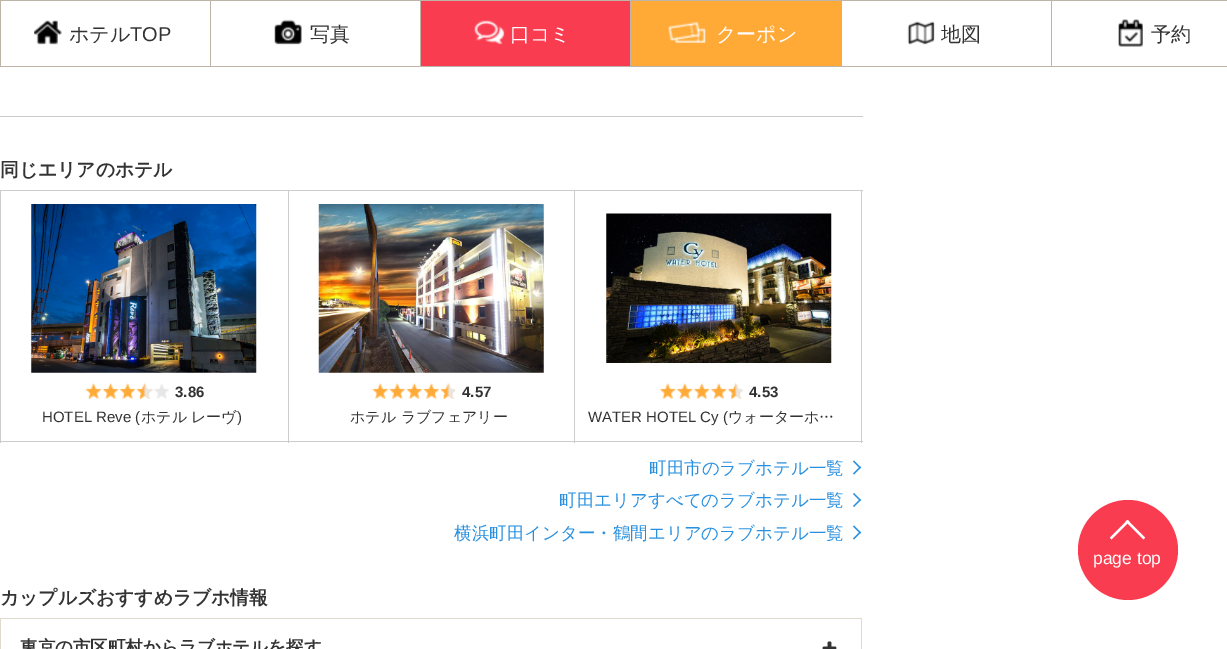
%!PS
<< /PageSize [1227 649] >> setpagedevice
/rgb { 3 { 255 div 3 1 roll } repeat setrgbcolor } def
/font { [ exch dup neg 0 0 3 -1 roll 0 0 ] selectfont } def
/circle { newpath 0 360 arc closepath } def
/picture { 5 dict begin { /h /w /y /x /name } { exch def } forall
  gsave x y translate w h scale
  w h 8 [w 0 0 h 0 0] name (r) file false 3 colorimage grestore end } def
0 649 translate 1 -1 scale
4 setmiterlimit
255 255 255 rgb
0 0 1227 649 rectfill
[
  [0 66 1227 1 189 179 167]
  [0 0 1 66 189 179 167]
  [1 0 1226 1 189 179 167]
  [210 0 1 66 189 179 167]
] { aload pop rgb rectfill } forall
(img/1.rgb) 34 20 28 25 picture
420 0 1 66 rectfill
(img/2.rgb) 274 19 28 26 picture
250 60 80 rgb
421 1 209 65 rectfill
189 179 167 rgb
630 0 1 66 rectfill
(img/3.rgb) 474 20 31 25 picture
841 0 1 66 rectfill
255 170 55 rgb
631 1 210 65 rectfill
(img/4.rgb) 668 21 38 22 picture
189 179 167 rgb
1051 0 1 66 rectfill
(img/5.rgb) 907 21 28 24 picture
(img/6.rgb) 1118 19 25 28 picture
[
  [0 116 863 1 204 204 204]
  [0 190 1 253 204 204 204]
  [1 190 862 1 204 204 204]
  [288 190 1 253 204 204 204]
  [1 441 288 1 204 204 204]
] { aload pop rgb rectfill } forall
(img/7.rgb) 31 204 226 169 picture
(img/8.rgb) 85 382 84 17 picture
574 190 1 253 rectfill
289 441 286 1 rectfill
(img/9.rgb) 318 204 226 169 picture
(img/10.rgb) 372 382 83 17 picture
861 190 1 253 rectfill
575 441 288 1 rectfill
(img/11.rgb) 606 213 226 154 picture
(img/12.rgb) 659 382 84 17 picture
41 144 223 rgb
854 460.5 moveto 861 467.5 lineto 860 468.5 lineto 853 461.5 lineto closepath fill
860 466.5 moveto 861 467.5 lineto 854 474.5 lineto 853 473.5 lineto closepath fill
854 493 moveto 861 500 lineto 860 501 lineto 853 494 lineto closepath fill
860 499 moveto 861 500 lineto 854 507 lineto 853 506 lineto closepath fill
854 525.5 moveto 861 532.5 lineto 860 533.5 lineto 853 526.5 lineto closepath fill
860 531.5 moveto 861 532.5 lineto 854 539.5 lineto 853 538.5 lineto closepath fill
[
  [861 618 1 31 223 217 206]
  [0 618 1 31 223 217 206]
  [1 618 860 1 223 217 206]
] { aload pop rgb rectfill } forall
(img/13.rgb) 822 641 15 8 picture
250 60 80 rgb
1128 550 50 circle fill
255 255 255 rgb
1127.5 520 moveto 1145 537.5 lineto 1143.5 539.5 lineto 1125.5 521.5 lineto closepath fill
1127.5 520 moveto 1129.5 521.5 lineto 1111.5 539.5 lineto 1110 537.5 lineto closepath fill
/WenQuanYiZenHei-Medium 20 font
51 51 51 rgb
69 41 moveto (ホテル) show
/LiberationSans-Regular 20 font
130 41 moveto (TOP) show
/WenQuanYiZenHei-Medium 20 font
310 41 moveto (写真) show
255 255 255 rgb
510 41 moveto (口コミ) show
716 41 moveto (クーポン) show
51 51 51 rgb
941 41 moveto (地図) show
1151 41 moveto (予約) show
/WenQuanYiZenHei-Bold 18.75 font
0 176 moveto (同じエリアのホテル) show
/LiberationSans-Bold 15 font
175 397 moveto (3.86) show
/LiberationSans-Regular 15 font
42 422 moveto (HOTEL Reve \() show
/WenQuanYiZenHei-Medium 15 font
141 422 moveto (ホテル) show
191 422 moveto (レーヴ) show
/LiberationSans-Regular 15 font
237 422 moveto (\)) show
/LiberationSans-Bold 15 font
462 397 moveto (4.57) show
/WenQuanYiZenHei-Medium 15 font
350 422 moveto (ホテル ラブフェアリー) show
/LiberationSans-Bold 15 font
749 397 moveto (4.53) show
/LiberationSans-Regular 15 font
588 422 moveto (WATER HOTEL Cy \() show
/WenQuanYiZenHei-Medium 15 font
728 422 moveto (ウォーターホ…) show
/WenQuanYiZenHei-Medium 17.5 font
41 144 223 rgb
[
  [(町田市のラブホテル一覧) 649 474]
  [(町田エリアすべてのラブホテル一覧) 559 506]
  [(横浜町田インター・鶴間エリアのラブホテル一覧) 454 539]
] { aload pop moveto show } forall
/WenQuanYiZenHei-Bold 18.75 font
51 51 51 rgb
0 604 moveto (カップルズおすすめラブホ情報) show
/WenQuanYiZenHei-Bold 17.5 font
20 653 moveto (東京の市区町村からラブホテルを探す) show
/LiberationSans-Regular 17.5 font
255 255 255 rgb
1093 564 moveto (page top) show
showpage
